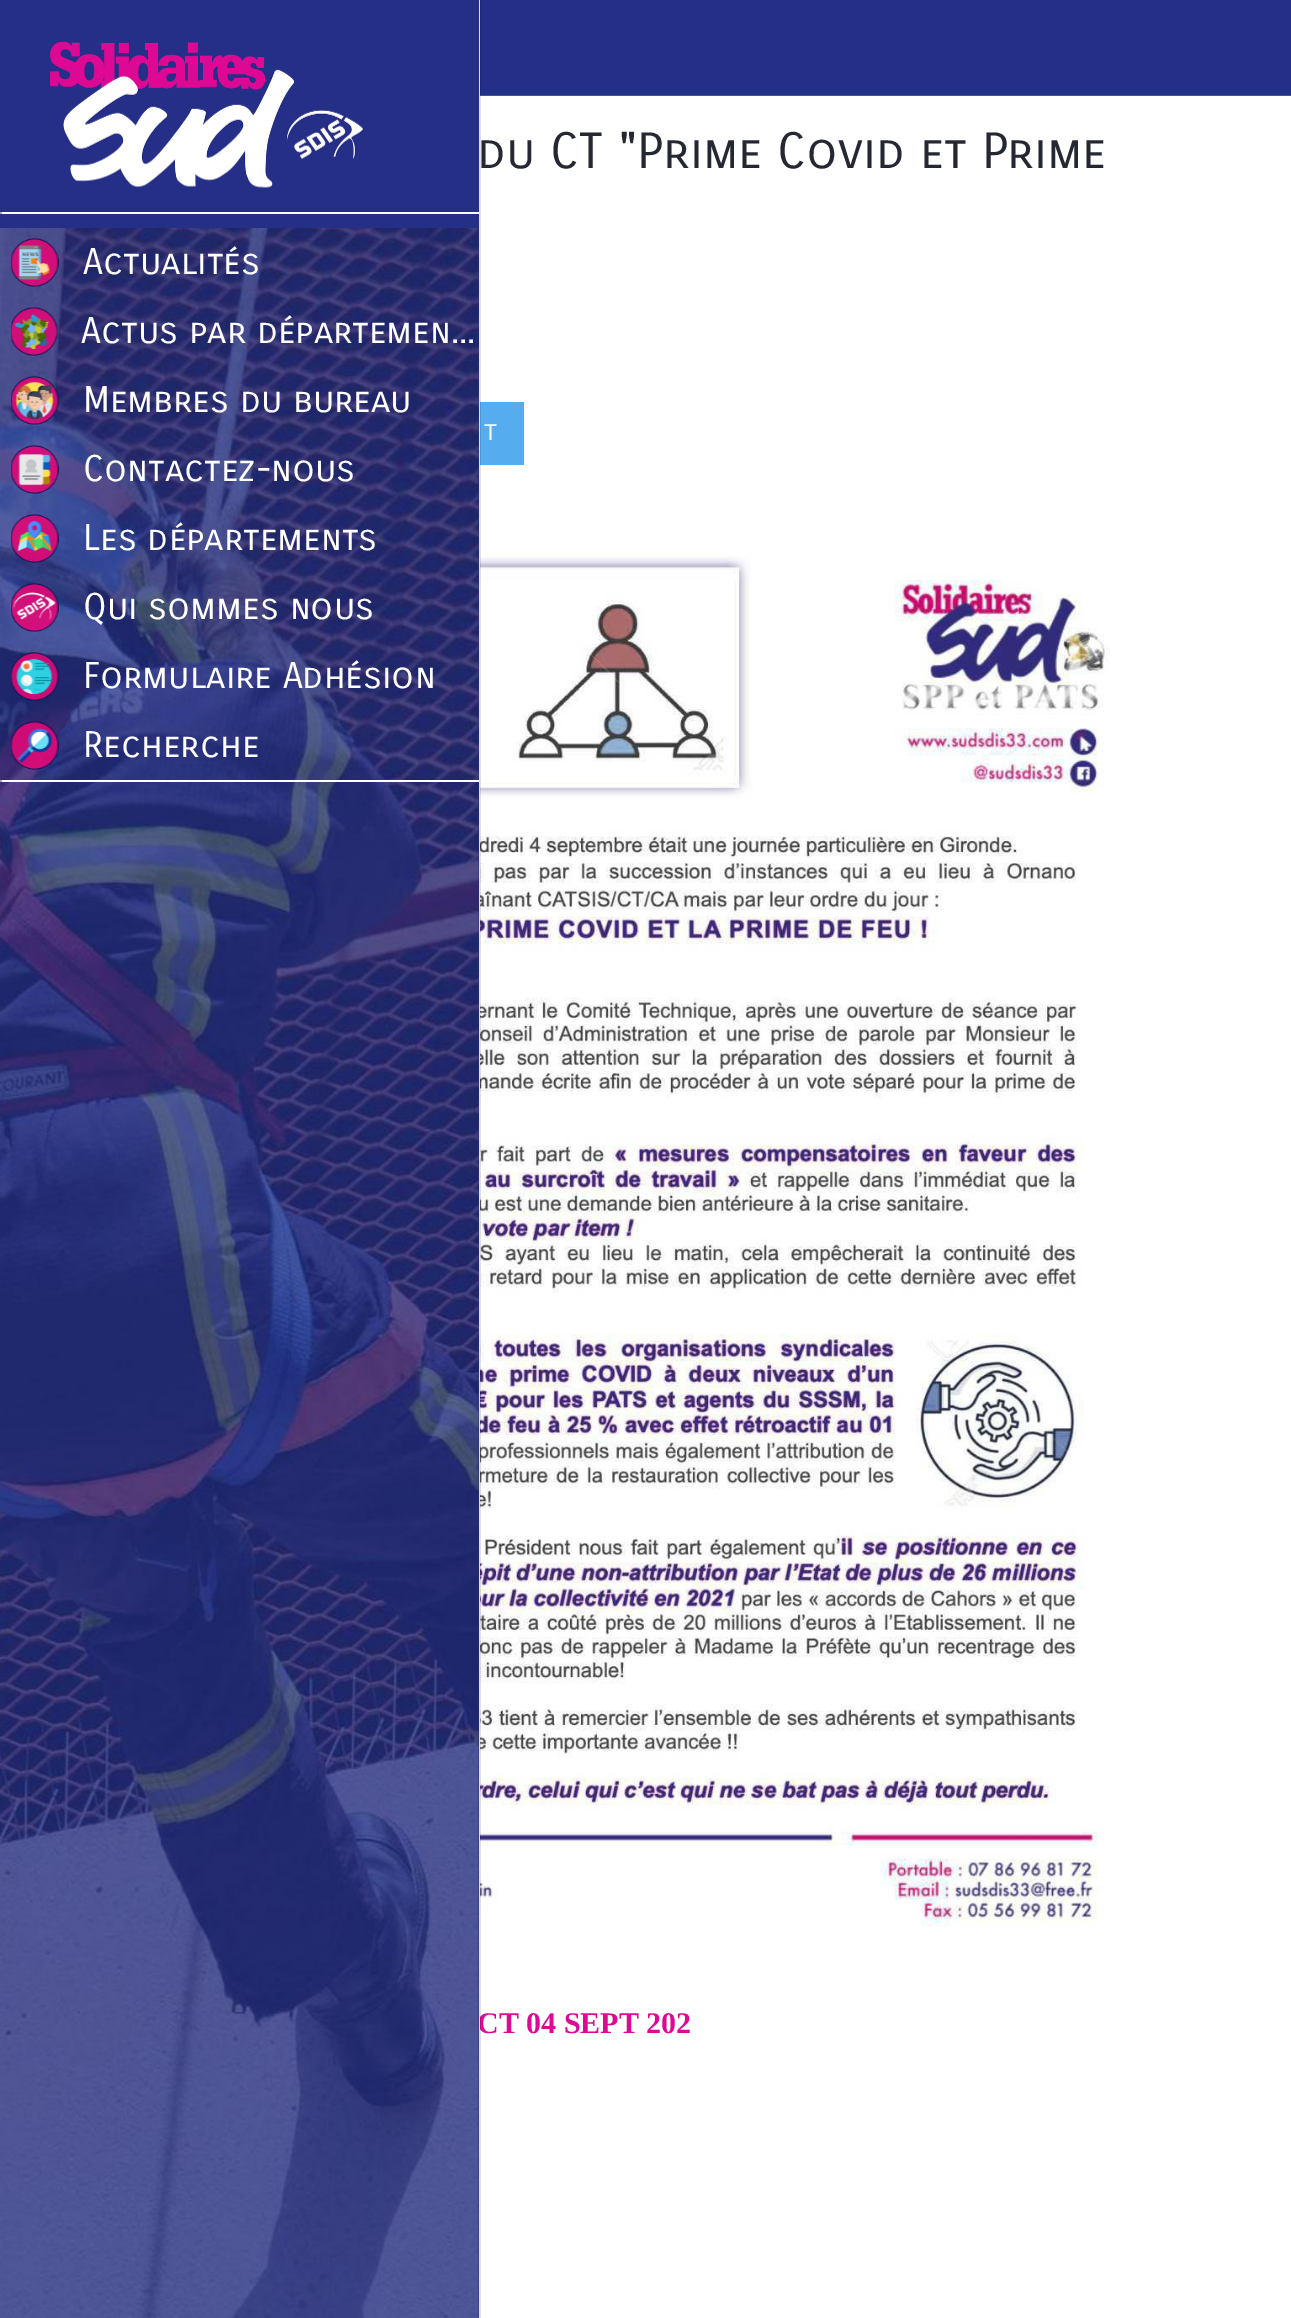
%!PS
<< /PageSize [1291 2318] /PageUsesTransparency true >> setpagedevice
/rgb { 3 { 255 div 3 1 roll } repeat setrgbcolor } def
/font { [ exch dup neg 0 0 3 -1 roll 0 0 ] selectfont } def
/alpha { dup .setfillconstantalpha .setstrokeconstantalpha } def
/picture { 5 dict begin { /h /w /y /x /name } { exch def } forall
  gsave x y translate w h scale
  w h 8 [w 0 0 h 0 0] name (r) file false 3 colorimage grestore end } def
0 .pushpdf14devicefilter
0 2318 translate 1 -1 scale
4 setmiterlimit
255 255 255 rgb
0 0 1291 2318 rectfill
37 47 136 rgb
0 0 479 228 rectfill
(img/2.rgb) 49 41 315 148 picture
[
  [0 212 479 2 255 255 255]
  [0 212 2 2 170 170 170]
  [480 0 811 95 37 47 136]
  [480 95 811 1 215 10 150]
  [480 402 44 63 85 172 239]
] { aload pop rgb rectfill } forall
(img/11.rgb) 480 553 630 1373 picture
/CarroisGothicSC-Regular 49.5 font
37 39 51 rgb
477 168 moveto (du CT "Prime Covid et Prime) show
/Roboto-Regular 22 font
255 255 255 rgb
484 440 moveto 2 0 (T) ashow
/LiberationSerif-Bold 30 font
223 8 148 rgb
477 2033 moveto (CT 04 SEPT 202) show
37 47 136 rgb
477 228 2 2090 rectfill
(img/1.rgb) 0 228 479 2090 picture
/CarroisGothicSC-Regular 36 font
255 255 255 rgb
[
  [(Recherche) 83 757]
  [(Formulaire Adhésion) 83 688]
  [(Qui sommes nous) 83 619]
  [(Les départements) 83 550]
  [(Contactez-nous) 83 481]
  [(Membres du bureau) 83 412]
  [(Actus par départemen...) 81 343]
  [(Actualités) 83 274]
] { aload pop moveto show } forall
0 780 479 2 rectfill
170 170 170 rgb
0 780 2 2 rectfill
(img/10.rgb) 11 721 48 49 picture
(img/9.rgb) 11 652 48 49 picture
(img/8.rgb) 11 583 48 49 picture
(img/7.rgb) 11 514 48 49 picture
(img/6.rgb) 11 445 48 49 picture
(img/5.rgb) 11 376 48 49 picture
(img/4.rgb) 11 307 47 49 picture
(img/3.rgb) 11 238 48 49 picture
255 255 255 rgb
479 2017 1 13 rectfill
0.12 alpha
0 0 0 rgb
479 0 2 2318 rectfill
.poppdf14devicefilter showpage
